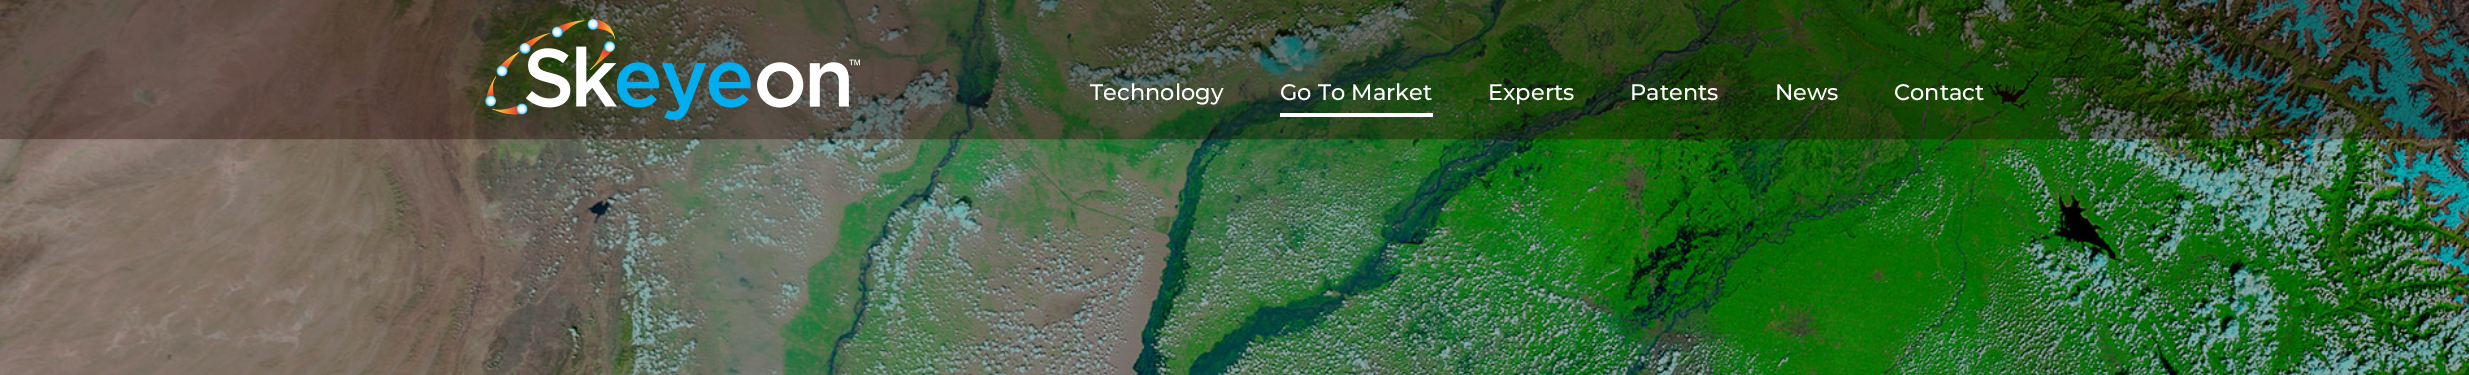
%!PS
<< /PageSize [2469 375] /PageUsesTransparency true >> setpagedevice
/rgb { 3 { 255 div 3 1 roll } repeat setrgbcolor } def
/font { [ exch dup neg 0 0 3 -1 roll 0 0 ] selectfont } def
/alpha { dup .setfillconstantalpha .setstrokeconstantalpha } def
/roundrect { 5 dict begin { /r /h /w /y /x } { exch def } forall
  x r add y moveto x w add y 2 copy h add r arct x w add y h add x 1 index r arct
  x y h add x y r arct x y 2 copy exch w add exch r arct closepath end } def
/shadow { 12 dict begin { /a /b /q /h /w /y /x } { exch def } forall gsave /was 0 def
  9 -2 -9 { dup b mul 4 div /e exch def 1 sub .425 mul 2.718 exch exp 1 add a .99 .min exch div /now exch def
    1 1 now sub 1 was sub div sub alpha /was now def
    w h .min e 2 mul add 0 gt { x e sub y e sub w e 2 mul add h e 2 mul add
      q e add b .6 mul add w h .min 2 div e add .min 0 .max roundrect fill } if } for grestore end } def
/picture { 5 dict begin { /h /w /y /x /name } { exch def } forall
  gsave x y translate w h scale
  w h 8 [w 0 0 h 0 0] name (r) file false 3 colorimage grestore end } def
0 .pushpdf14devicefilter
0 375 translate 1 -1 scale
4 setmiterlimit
255 255 255 rgb
0 0 2469 375 rectfill
(img/1.rgb) 0 0 2469 375 picture
gsave
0 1 moveto 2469 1 lineto 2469 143 lineto 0 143 lineto closepath 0 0 moveto 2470 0 lineto 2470 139 lineto 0 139 lineto closepath eoclip newpath
0 0 0 rgb
3 5 2465 134 0 1 0.2 shadow
grestore
0.36 alpha
35 5 2 rgb
0 0 2469 139 rectfill
1 alpha
(img/2.rgb) 485 19 375 101 picture
255 255 255 rgb
1280 113 153 4 rectfill
/Montserrat-Medium 22.5 font
[
  [(Technology) 1090 100]
  [(Go To Market) 1280 100]
  [(Experts) 1488 100]
  [(Patents) 1630 100]
  [(News) 1775 100]
  [(Contact) 1894 100]
] { aload pop moveto show } forall
.poppdf14devicefilter showpage
